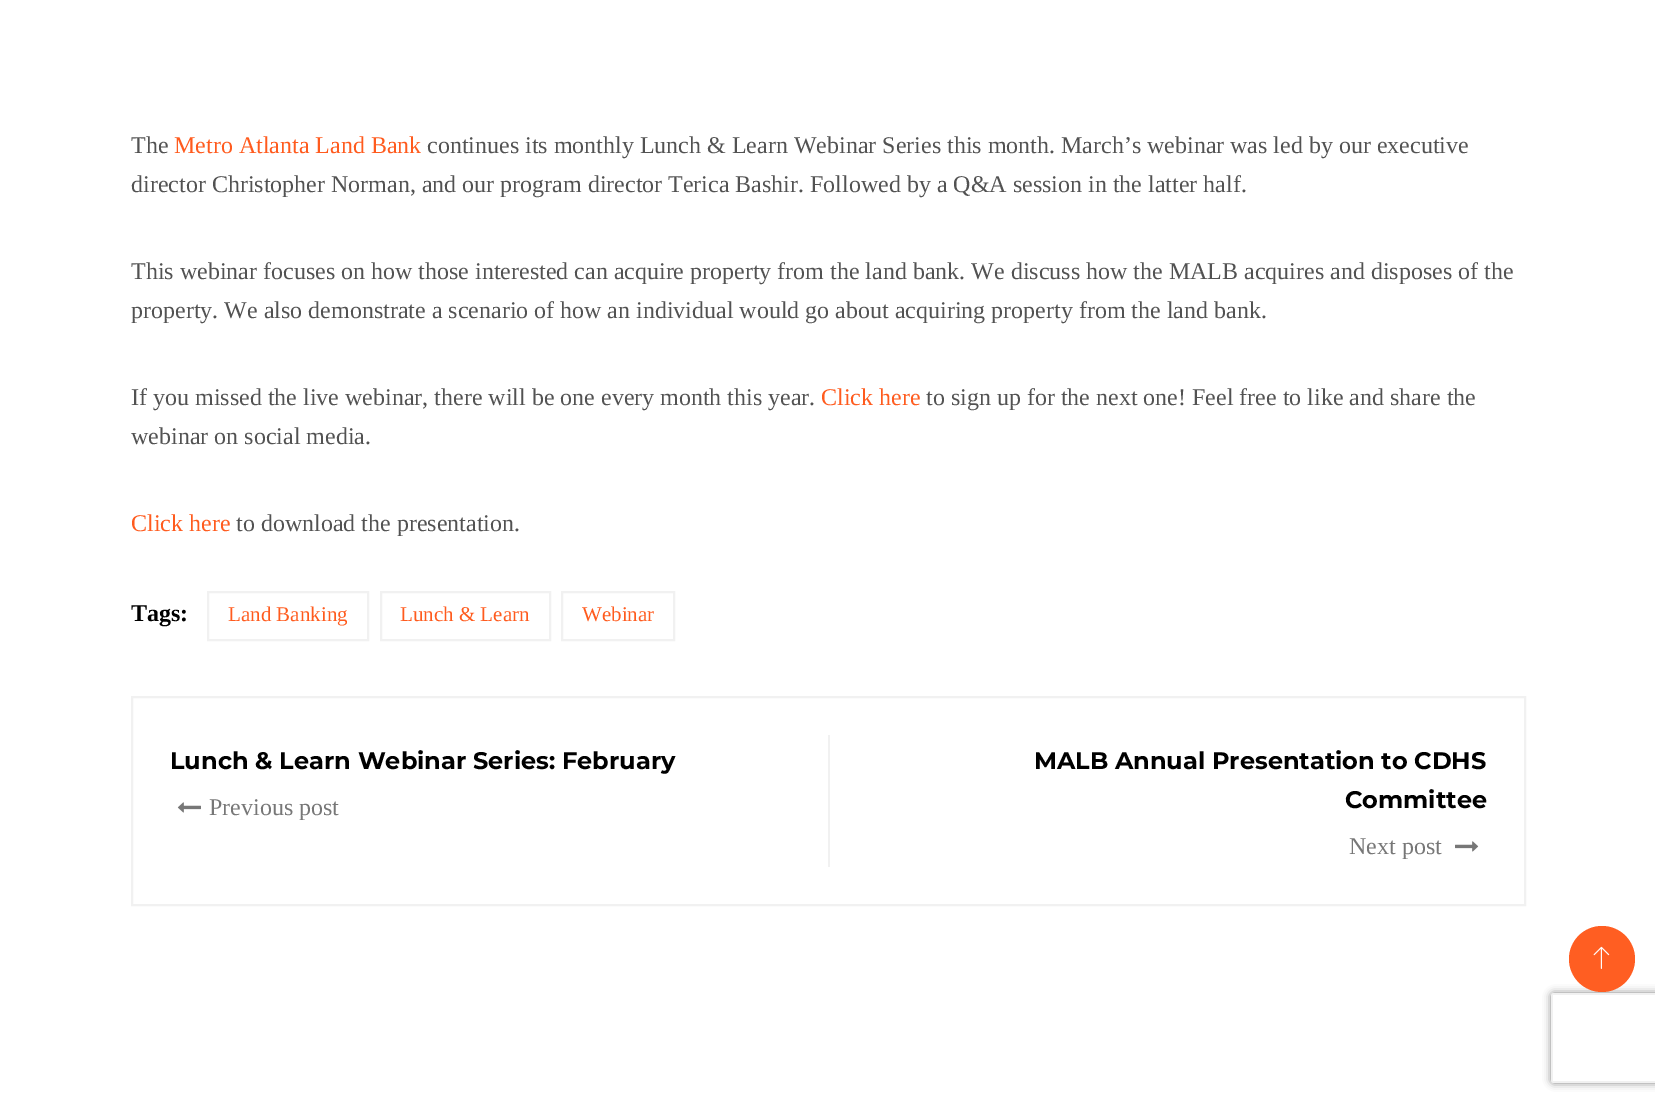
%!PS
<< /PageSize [1655 1103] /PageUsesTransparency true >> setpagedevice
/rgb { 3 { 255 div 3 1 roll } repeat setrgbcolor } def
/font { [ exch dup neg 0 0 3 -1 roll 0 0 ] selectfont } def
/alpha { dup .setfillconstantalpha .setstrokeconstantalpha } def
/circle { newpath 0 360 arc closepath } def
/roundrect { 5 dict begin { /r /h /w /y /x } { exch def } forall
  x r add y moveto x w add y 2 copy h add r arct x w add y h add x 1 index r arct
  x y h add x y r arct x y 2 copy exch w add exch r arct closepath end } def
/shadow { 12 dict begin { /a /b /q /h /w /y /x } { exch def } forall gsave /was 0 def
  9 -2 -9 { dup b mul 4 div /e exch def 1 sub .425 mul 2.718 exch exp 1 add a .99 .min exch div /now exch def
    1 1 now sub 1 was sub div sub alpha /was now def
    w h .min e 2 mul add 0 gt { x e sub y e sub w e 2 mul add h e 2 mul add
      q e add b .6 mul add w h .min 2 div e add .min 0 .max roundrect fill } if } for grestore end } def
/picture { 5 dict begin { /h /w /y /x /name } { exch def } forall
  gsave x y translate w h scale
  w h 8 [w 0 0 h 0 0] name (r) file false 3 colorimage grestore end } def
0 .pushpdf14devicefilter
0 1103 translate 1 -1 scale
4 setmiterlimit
255 255 255 rgb
0 0 1655 1103 rectfill
241 241 241 rgb
2 setlinewidth
208 592 160 48 rectstroke
381 592 169 48 rectstroke
562 592 112 48 rectstroke
132 697 1393 208 rectstroke
(img/1.rgb) 177 802 24 11 picture
828 735 2 132 rectfill
(img/2.rgb) 1455 841 24 11 picture
gsave
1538 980 moveto 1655 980 lineto 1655 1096 lineto 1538 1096 lineto closepath 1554 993 moveto 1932 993 lineto 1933.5 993 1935 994.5 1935 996 curveto 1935 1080 lineto 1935 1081.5 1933.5 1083 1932 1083 curveto 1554 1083 lineto 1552.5 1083 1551 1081.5 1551 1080 curveto 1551 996 lineto 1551 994.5 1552.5 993 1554 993 curveto closepath eoclip newpath
128 128 128 rgb
1551 993 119 90 3 4 1 shadow
grestore
0.98 alpha
255 91 30 rgb
1602 959 33 circle fill
1 alpha
(img/3.rgb) 1593 946 17 23 picture
241 241 241 rgb
1554 993 moveto 1552 993 1551 994 1551 996 curveto 1551 1080 lineto 1551 1082 1552 1083 1554 1083 curveto 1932 1083 lineto 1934 1083 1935 1082 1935 1080 curveto 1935 996 lineto 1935 994 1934 993 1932 993 curveto closepath 1553 995 moveto 1553 1081 lineto 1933 1081 lineto 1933 995 lineto closepath eofill
/LiberationSerif-Regular 24 font
82 82 82 rgb
131 153 moveto (The) show
255 91 30 rgb
174 153 moveto (Metro Atlanta Land Bank) show
82 82 82 rgb
[
  [(continues its monthly Lunch & Learn Webinar Series this month. March’s webinar was led by our executive) 427 153]
  [(director Christopher Norman, and our program director Terica Bashir. Followed by a Q&A session in the latter half.) 131 192]
  [(This webinar focuses on how those interested can acquire property from the land bank. We discuss how the MALB acquires and disposes of the) 131 279]
  [(property. We also demonstrate a scenario of how an individual would go about acquiring property from the land bank.) 131 318]
  [(If you missed the live webinar, there will be one every month this year.) 131 405]
] { aload pop moveto show } forall
255 91 30 rgb
821 405 moveto (Click here) show
82 82 82 rgb
926 405 moveto (to sign up for the next one! Feel free to like and share the) show
131 444 moveto (webinar on social media.) show
255 91 30 rgb
131 531 moveto (Click here) show
82 82 82 rgb
236 531 moveto (to download the presentation.) show
/LiberationSerif-Bold 24 font
0 0 0 rgb
131 621 moveto (Tags:) show
/LiberationSerif-Regular 21 font
255 91 30 rgb
[
  [(Land Banking) 228 621]
  [(Lunch & Learn) 400 621]
  [(Webinar) 582 621]
] { aload pop moveto show } forall
/Montserrat-Bold 24 font
0 0 0 rgb
170 769 moveto (Lunch & Learn Webinar Series: February) show
/LiberationSerif-Regular 24 font
119 119 119 rgb
209 815 moveto (Previous post) show
/Montserrat-Bold 24 font
0 0 0 rgb
1034 769 moveto (MALB Annual Presentation to CDHS) show
1345 808 moveto (Committee) show
/LiberationSerif-Regular 24 font
119 119 119 rgb
1349 854 moveto (Next post) show
.poppdf14devicefilter showpage
